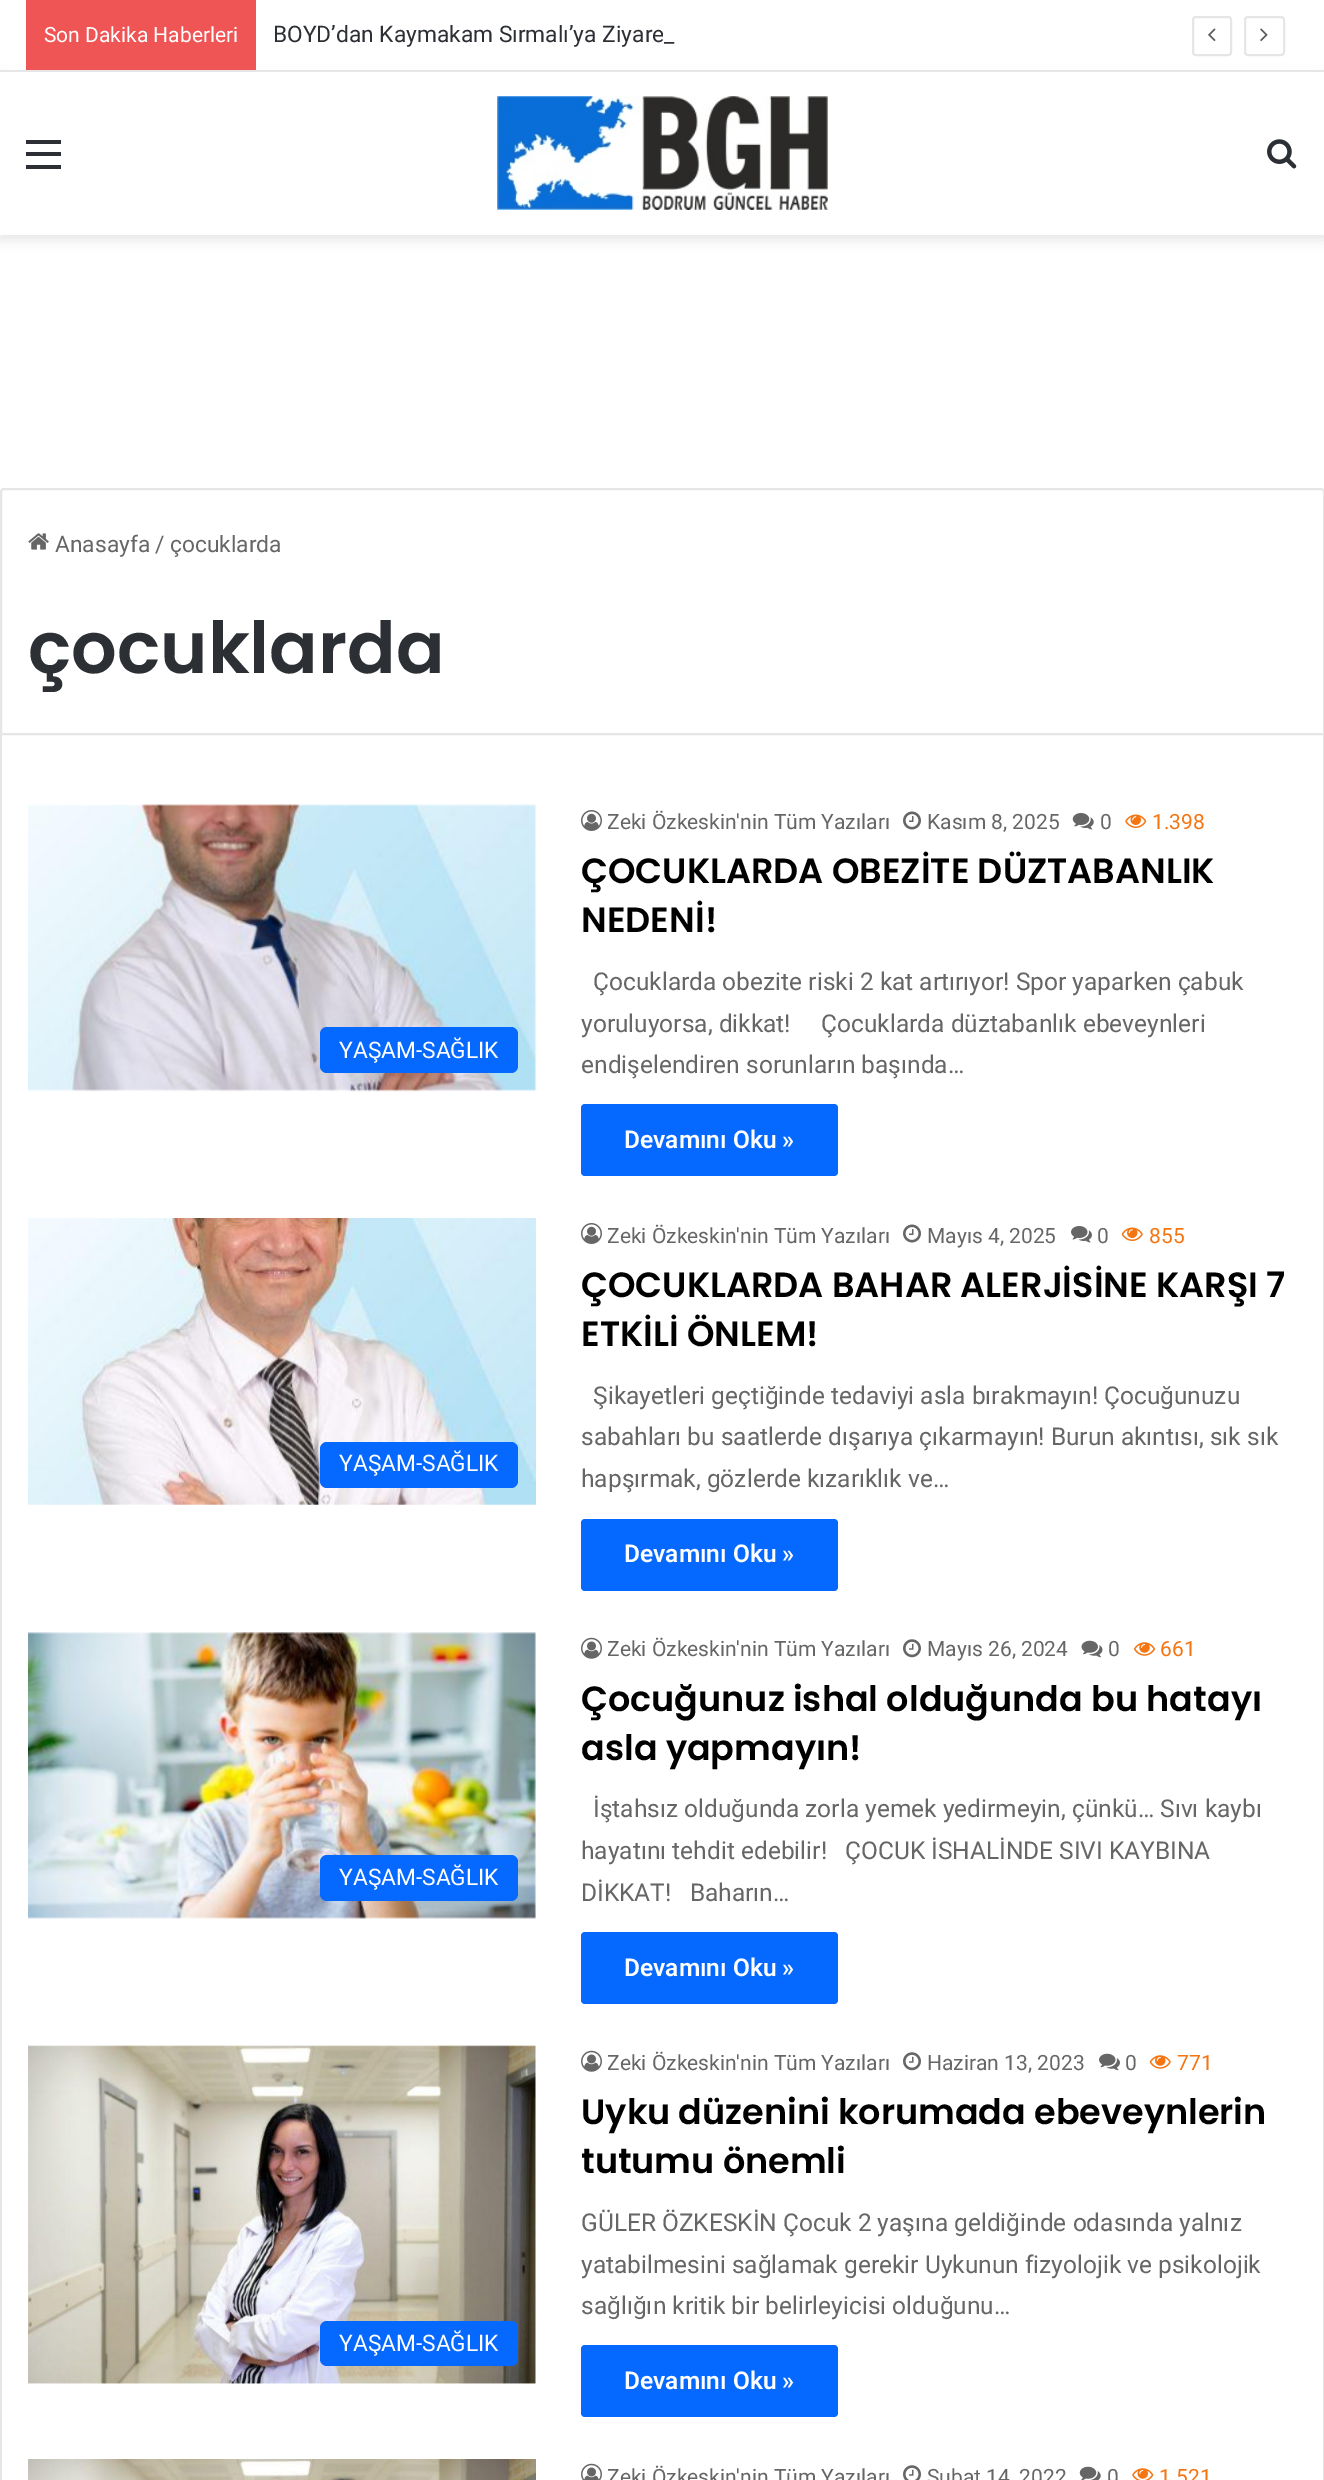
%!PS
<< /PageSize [1324 2480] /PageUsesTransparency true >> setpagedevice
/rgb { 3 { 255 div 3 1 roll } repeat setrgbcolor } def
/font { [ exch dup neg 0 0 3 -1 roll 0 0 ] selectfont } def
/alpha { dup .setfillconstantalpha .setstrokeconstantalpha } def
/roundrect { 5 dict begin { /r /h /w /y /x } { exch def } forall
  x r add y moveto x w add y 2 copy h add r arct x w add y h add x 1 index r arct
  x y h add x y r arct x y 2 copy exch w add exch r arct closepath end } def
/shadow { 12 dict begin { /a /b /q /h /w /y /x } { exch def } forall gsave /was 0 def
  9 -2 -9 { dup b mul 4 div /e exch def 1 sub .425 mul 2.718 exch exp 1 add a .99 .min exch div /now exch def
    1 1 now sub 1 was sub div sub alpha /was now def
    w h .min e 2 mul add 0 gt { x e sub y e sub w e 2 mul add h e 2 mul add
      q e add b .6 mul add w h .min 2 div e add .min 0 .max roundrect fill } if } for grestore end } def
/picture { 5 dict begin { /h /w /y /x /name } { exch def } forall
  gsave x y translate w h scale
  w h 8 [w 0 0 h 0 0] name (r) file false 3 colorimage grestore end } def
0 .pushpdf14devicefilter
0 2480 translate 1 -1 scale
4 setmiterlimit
255 255 255 rgb
0 0 1324 2480 rectfill
0 0 0 rgb
0 77 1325 163 0 6 0.1 shadow
[
  [10 69 1305 1 255 255 255]
  [0 70 1324 2 230 230 230]
  [26 0 230 70 240 85 85]
] { aload pop rgb rectfill } forall
230 230 230 rgb
2 setlinewidth
1193 17 38 38 3 roundrect stroke
(img/1.rgb) 1208 28 8 14 picture
1245 17 39 38 3 roundrect stroke
(img/2.rgb) 1260 28 8 14 picture
[
  [0 72 1324 163 255 255 255]
  [26 152 35 4 44 47 52]
  [26 140 35 4 44 47 52]
  [26 165 35 4 44 47 52]
] { aload pop rgb rectfill } forall
(img/3.rgb) 497 96 331 114 picture
(img/4.rgb) 1267 139 30 30 picture
230 230 230 rgb
4 489 moveto 1321 489 lineto 1322.5 489 1324 490.5 1324 492 curveto 1324 734 lineto 1 734 lineto 1 492 lineto 1 490.5 2.5 489 4 489 curveto closepath stroke
(img/5.rgb) 28 533 21 17 picture
1323 735 1 1745 rectfill
0 735 2 1745 rectfill
(img/6.rgb) 28 804 508 288 picture
6 105 255 rgb
320 1027 198 46 7 roundrect fill
(img/7.rgb) 581 810 21 21 picture
(img/8.rgb) 903 811 18 19 picture
(img/9.rgb) 1072 813 22 17 picture
(img/10.rgb) 1125 814 22 14 picture
581 1104 257 72 4 roundrect fill
(img/11.rgb) 28 1218 508 287 picture
320 1442 198 46 7 roundrect fill
(img/7.rgb) 581 1223 21 21 picture
(img/8.rgb) 903 1224 18 19 picture
(img/12.rgb) 1071 1226 21 17 picture
(img/13.rgb) 1121 1227 22 14 picture
581 1519 257 72 4 roundrect fill
(img/14.rgb) 28 1632 508 287 picture
320 1855 198 46 7 roundrect fill
(img/15.rgb) 581 1637 21 22 picture
(img/16.rgb) 903 1639 18 19 picture
(img/17.rgb) 1081 1640 22 18 picture
(img/18.rgb) 1134 1642 21 14 picture
581 1932 257 72 4 roundrect fill
(img/19.rgb) 28 2045 508 339 picture
320 2321 198 45 7 roundrect fill
(img/15.rgb) 581 2050 21 22 picture
(img/16.rgb) 903 2052 18 19 picture
(img/20.rgb) 1099 2053 21 18 picture
(img/21.rgb) 1149 2055 22 14 picture
581 2345 257 72 4 roundrect fill
(img/22.rgb) 28 2459 508 21 picture
(img/23.rgb) 581 2463 21 17 picture
(img/24.rgb) 903 2465 18 15 picture
(img/25.rgb) 1079 2466 22 14 picture
(img/26.rgb) 1132 2468 22 12 picture
/Roboto-Regular 21 font
255 255 255 rgb
44 42 moveto (Son Dakika Haberleri) show
/Roboto-Regular 22.75 font
44 47 52 rgb
273 42 moveto (BOYD’dan Kaymakam Sırmalı’ya Ziyare_) show
255 255 255 rgb
663 32 1 9 rectfill
102 102 102 rgb
[
  [(Anasayfa) 55 552]
  [(/) 155 552]
  [(çocuklarda) 170 552]
] { aload pop moveto show } forall
/Poppins-SemiBold 71.75 font
44 47 52 rgb
28 673 moveto (çocuklarda) show
/Roboto-Regular 22.75 font
255 255 255 rgb
339 1058 moveto (YAŞAM-SAĞLIK) show
/Roboto-Regular 21 font
102 102 102 rgb
[
  [(Zeki Özkeskin'nin Tüm Yazıları) 607 829]
  [(Kasım 8, 2025) 927 829]
  [(0) 1100 829]
] { aload pop moveto show } forall
244 117 18 rgb
1152 829 moveto (1.398) show
/Poppins-SemiBold 35 font
0 0 0 rgb
581 883 moveto (ÇOCUKLARDA OBEZİTE DÜZTABANLIK) show
581 932 moveto (NEDENİ!) show
/Roboto-Regular 24.5 font
102 102 102 rgb
[
  [(Çocuklarda obezite riski 2 kat artırıyor! Spor yaparken çabuk) 593 990]
  [(yoruluyorsa, dikkat!     Çocuklarda düztabanlık ebeveynleri) 581 1032]
  [(endişelendiren sorunların başında…) 581 1073]
] { aload pop moveto show } forall
/Roboto-SemiBold 24.5 font
255 255 255 rgb
624 1148 moveto (Devamını Oku ») show
/Roboto-Regular 22.75 font
339 1471 moveto (YAŞAM-SAĞLIK) show
/Roboto-Regular 21 font
102 102 102 rgb
[
  [(Zeki Özkeskin'nin Tüm Yazıları) 607 1243]
  [(Mayıs 4, 2025) 927 1243]
  [(0) 1097 1243]
] { aload pop moveto show } forall
244 117 18 rgb
1149 1243 moveto (855) show
/Poppins-SemiBold 35 font
0 0 0 rgb
581 1297 moveto (ÇOCUKLARDA BAHAR ALERJİSİNE KARŞI 7) show
581 1346 moveto (ETKİLİ ÖNLEM!) show
/Roboto-Regular 24.5 font
102 102 102 rgb
[
  [(Şikayetleri geçtiğinde tedaviyi asla bırakmayın! Çocuğunuzu) 593 1404]
  [(sabahları bu saatlerde dışarıya çıkarmayın! Burun akıntısı, sık sık) 581 1445]
  [(hapşırmak, gözlerde kızarıklık ve…) 581 1487]
] { aload pop moveto show } forall
/Roboto-SemiBold 24.5 font
255 255 255 rgb
624 1562 moveto (Devamını Oku ») show
/Roboto-Regular 22.75 font
339 1885 moveto (YAŞAM-SAĞLIK) show
/Roboto-Regular 21 font
102 102 102 rgb
[
  [(Zeki Özkeskin'nin Tüm Yazıları) 607 1656]
  [(Mayıs 26, 2024) 927 1656]
  [(0) 1108 1656]
] { aload pop moveto show } forall
244 117 18 rgb
1160 1656 moveto (661) show
/Poppins-SemiBold 35 font
0 0 0 rgb
581 1711 moveto (Çocuğunuz ishal olduğunda bu hatayı) show
581 1760 moveto (asla yapmayın!) show
/Roboto-Regular 24.5 font
102 102 102 rgb
[
  [(İştahsız olduğunda zorla yemek yedirmeyin, çünkü… Sıvı kaybı) 593 1817]
  [(hayatını tehdit edebilir!   ÇOCUK İSHALİNDE SIVI KAYBINA) 581 1859]
  [(DİKKAT!   Baharın…) 581 1901]
] { aload pop moveto show } forall
/Roboto-SemiBold 24.5 font
255 255 255 rgb
624 1976 moveto (Devamını Oku ») show
/Roboto-Regular 22.75 font
339 2351 moveto (YAŞAM-SAĞLIK) show
/Roboto-Regular 21 font
102 102 102 rgb
[
  [(Zeki Özkeskin'nin Tüm Yazıları) 607 2070]
  [(Haziran 13, 2023) 927 2070]
  [(0) 1125 2070]
] { aload pop moveto show } forall
244 117 18 rgb
1177 2070 moveto (771) show
/Poppins-SemiBold 35 font
0 0 0 rgb
581 2124 moveto (Uyku düzenini korumada ebeveynlerin) show
581 2173 moveto (tutumu önemli) show
/Roboto-Regular 24.5 font
102 102 102 rgb
[
  [(GÜLER ÖZKESKİN Çocuk 2 yaşına geldiğinde odasında yalnız) 581 2231]
  [(yatabilmesini sağlamak gerekir Uykunun fizyolojik ve psikolojik) 581 2273]
  [(sağlığın kritik bir belirleyicisi olduğunu…) 581 2314]
] { aload pop moveto show } forall
/Roboto-SemiBold 24.5 font
255 255 255 rgb
624 2389 moveto (Devamını Oku ») show
/Roboto-Regular 21 font
102 102 102 rgb
[
  [(Zeki Özkeskin'nin Tüm Yazıları) 607 2484]
  [(Şubat 14, 2022) 927 2484]
  [(0) 1107 2484]
] { aload pop moveto show } forall
244 117 18 rgb
1159 2484 moveto (1.521) show
.poppdf14devicefilter showpage
